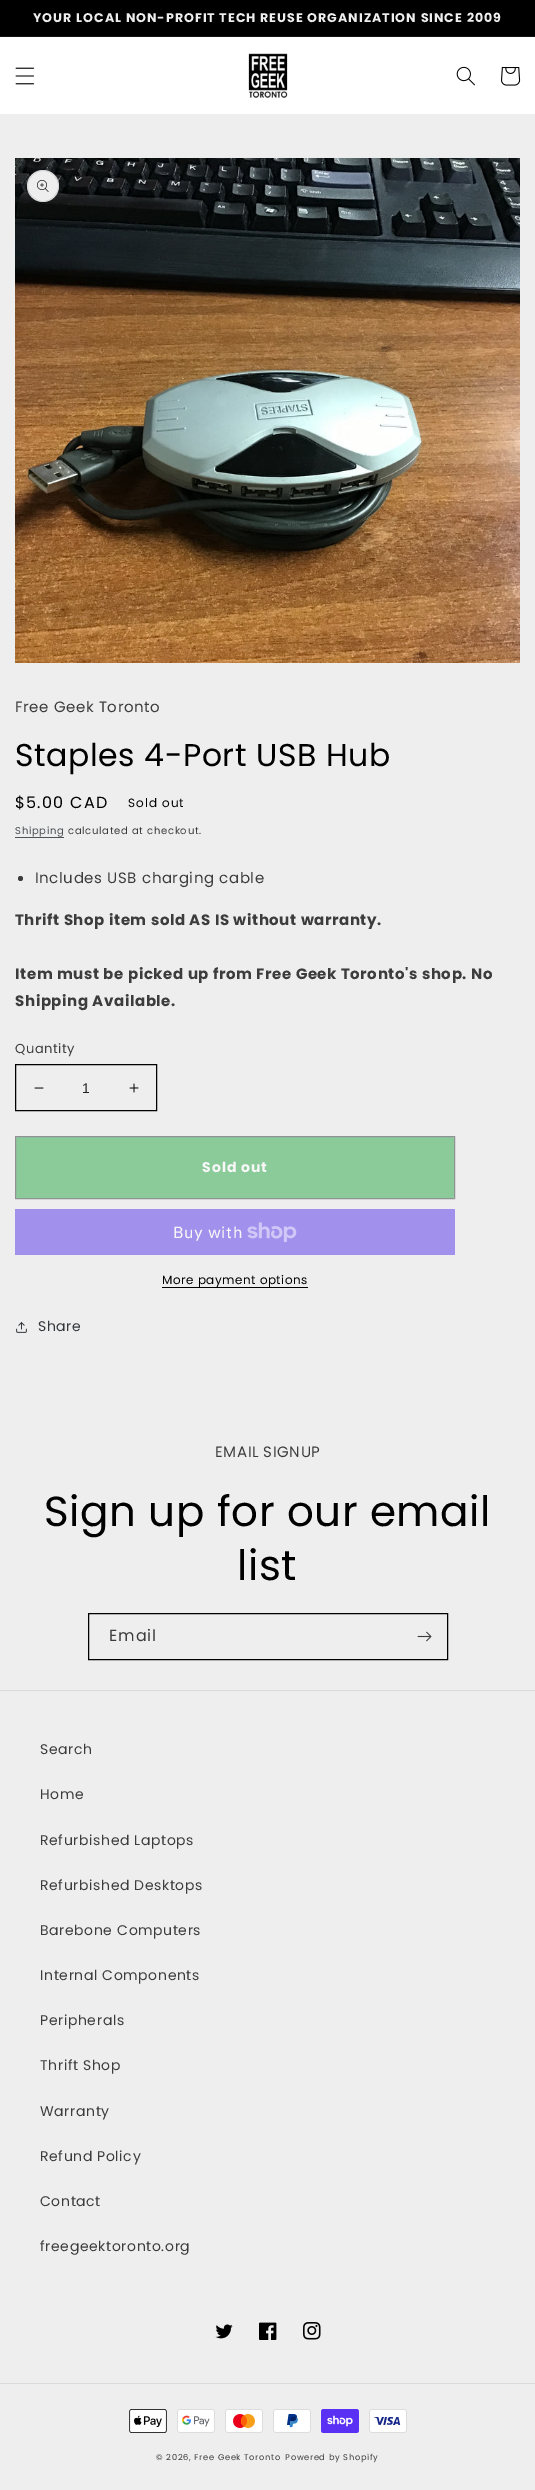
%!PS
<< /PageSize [535 2490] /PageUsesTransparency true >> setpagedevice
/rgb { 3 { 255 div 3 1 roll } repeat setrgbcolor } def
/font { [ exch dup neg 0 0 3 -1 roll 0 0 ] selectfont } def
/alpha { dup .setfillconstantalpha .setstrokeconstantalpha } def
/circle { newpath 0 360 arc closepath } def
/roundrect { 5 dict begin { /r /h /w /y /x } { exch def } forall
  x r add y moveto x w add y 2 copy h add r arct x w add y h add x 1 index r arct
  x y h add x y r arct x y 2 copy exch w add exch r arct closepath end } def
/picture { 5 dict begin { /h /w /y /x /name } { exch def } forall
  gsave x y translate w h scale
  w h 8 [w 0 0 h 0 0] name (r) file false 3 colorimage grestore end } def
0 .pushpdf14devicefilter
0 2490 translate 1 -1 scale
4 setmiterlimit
238 238 238 rgb
0 0 535 2490 rectfill
[
  [0 0 535 36 0 0 0]
  [0 36 535 1 19 19 19]
  [0 37 535 77 255 255 255]
] { aload pop rgb rectfill } forall
(img/1.rgb) 15 67 20 18 picture
(img/2.rgb) 248 53 40 45 picture
(img/3.rgb) 456 66 19 20 picture
(img/4.rgb) 501 67 20 19 picture
(img/5.rgb) 15 158 505 505 picture
238 238 238 rgb
43 186 16 circle fill
0.1 alpha
0 0 0 rgb
43 186 15.5 circle stroke
1 alpha
(img/6.rgb) 37 180 12 12 picture
78 82 87 rgb
15 837 49 1 rectfill
60 60 60 rgb
20.5 878.5 2.5 circle fill
(img/7.rgb) 34 1087 10 2 picture
(img/8.rgb) 129 1083 10 10 picture
0 0 0 rgb
15.5 1064.5 141 46 rectstroke
139 203 154 rgb
15 1136 440 63 5 roundrect fill
144 147 149 rgb
15.5 1136.5 439 62 rectstroke
161 145 237 rgb
15 1209 440 46 rectfill
(img/9.rgb) 247 1222 50 20 picture
0 0 0 rgb
162 1287 146 1 rectfill
(img/10.rgb) 16 1322 11 11 picture
88.5 1613.5 359 46 rectstroke
(img/11.rgb) 417 1631 15 11 picture
219 219 219 rgb
0 1690 535 1 rectfill
(img/12.rgb) 215 2324 18 15 picture
(img/13.rgb) 259 2322 18 18 picture
(img/14.rgb) 303 2322 18 18 picture
0 2383 535 1 rectfill
(img/15.rgb) 129 2409 38 24 picture
(img/16.rgb) 177 2409 38 24 picture
(img/17.rgb) 225 2409 38 24 picture
(img/18.rgb) 273 2409 38 24 picture
(img/19.rgb) 321 2409 38 24 picture
(img/20.rgb) 369 2409 38 24 picture
/Poppins-Bold 12.6 font
238 238 238 rgb
33 22 moveto 1 0 (YOUR LOCAL NON-PROFIT TECH REUSE ORGANIZATION SINCE 2009) ashow
/Poppins-Regular 15 font
60 60 60 rgb
15 712 moveto 0.6 0 (Free Geek Toronto) ashow
/Poppins-Regular 31.5 font
0 0 0 rgb
15 766 moveto 0.6 0 (Staples 4-Port USB Hub) ashow
/Poppins-Regular 16 font
15 808 moveto 1.25 0 ($5.00 CAD) ashow
/Poppins-Regular 12 font
128 807 moveto 1 0 (Sold out) ashow
/Poppins-Regular 10 font
78 82 87 rgb
15 834 moveto 0.7 0 (Shipping) ashow
60 60 60 rgb
68 834 moveto 0.7 0 (calculated at checkout.) ashow
/Poppins-Regular 15 font
35 883 moveto 0.6 0 (Includes USB charging cable) ashow
/Poppins-Bold 15 font
15 925 moveto 0.6 0 (Thrift Shop item sold AS IS without warranty.) ashow
15 979 moveto 0.6 0 (Item must be picked up from Free Geek Toronto's shop. No) ashow
15 1006 moveto 0.6 0 (Shipping Available.) ashow
/Poppins-Regular 13 font
15 1053 moveto 0.5 0 (Quantity) ashow
/LiberationSans-Regular 14 font
36 36 36 rgb
82 1093 moveto (1) show
/Poppins-Bold 14 font
247 247 247 rgb
202 1172 moveto 1 0 (Sold out) ashow
/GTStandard-Regular 16 font
173 1238 moveto 0.6 0 (Buy with) ashow
/Poppins-Regular 12 font
0 0 0 rgb
162 1284 moveto 0.5 0 (More payment options) ashow
/Poppins-Regular 14 font
50 55 60 rgb
38 1331 moveto 0.6 0 (Share) ashow
/Poppins-Regular 15 font
60 60 60 rgb
215 1457 moveto 0.6 0 (EMAIL SIGNUP) ashow
/Poppins-Regular 42 font
0 0 0 rgb
44 1526 moveto 0.6 0 (Sign up for our email) ashow
237 1580 moveto 0.6 0 (list) ashow
/Poppins-Regular 16 font
60 60 60 rgb
109 1641 moveto 1 0 (Email) ashow
/Poppins-Regular 14 font
40 1754 moveto 0.6 0 (Search) ashow
40 1799 moveto 0.6 0 (Home) ashow
40 1845 moveto 0.6 0 (Refurbished Laptops) ashow
40 1890 moveto 0.6 0 (Refurbished Desktops) ashow
40 1935 moveto 0.6 0 (Barebone Computers) ashow
40 1980 moveto 0.6 0 (Internal Components) ashow
40 2025 moveto 0.6 0 (Peripherals) ashow
40 2070 moveto 0.6 0 (Thrift Shop) ashow
40 2116 moveto 0.6 0 (Warranty) ashow
40 2161 moveto 0.6 0 (Refund Policy) ashow
40 2206 moveto 0.6 0 (Contact) ashow
40 2251 moveto 0.6 0 (freegeektoronto.org) ashow
/Poppins-Regular 8.3 font
156 2460 moveto 0.7 0 (© 2026, Free Geek Toronto) ashow
285 2460 moveto 0.7 0 (Powered by Shopify) ashow
.poppdf14devicefilter showpage
